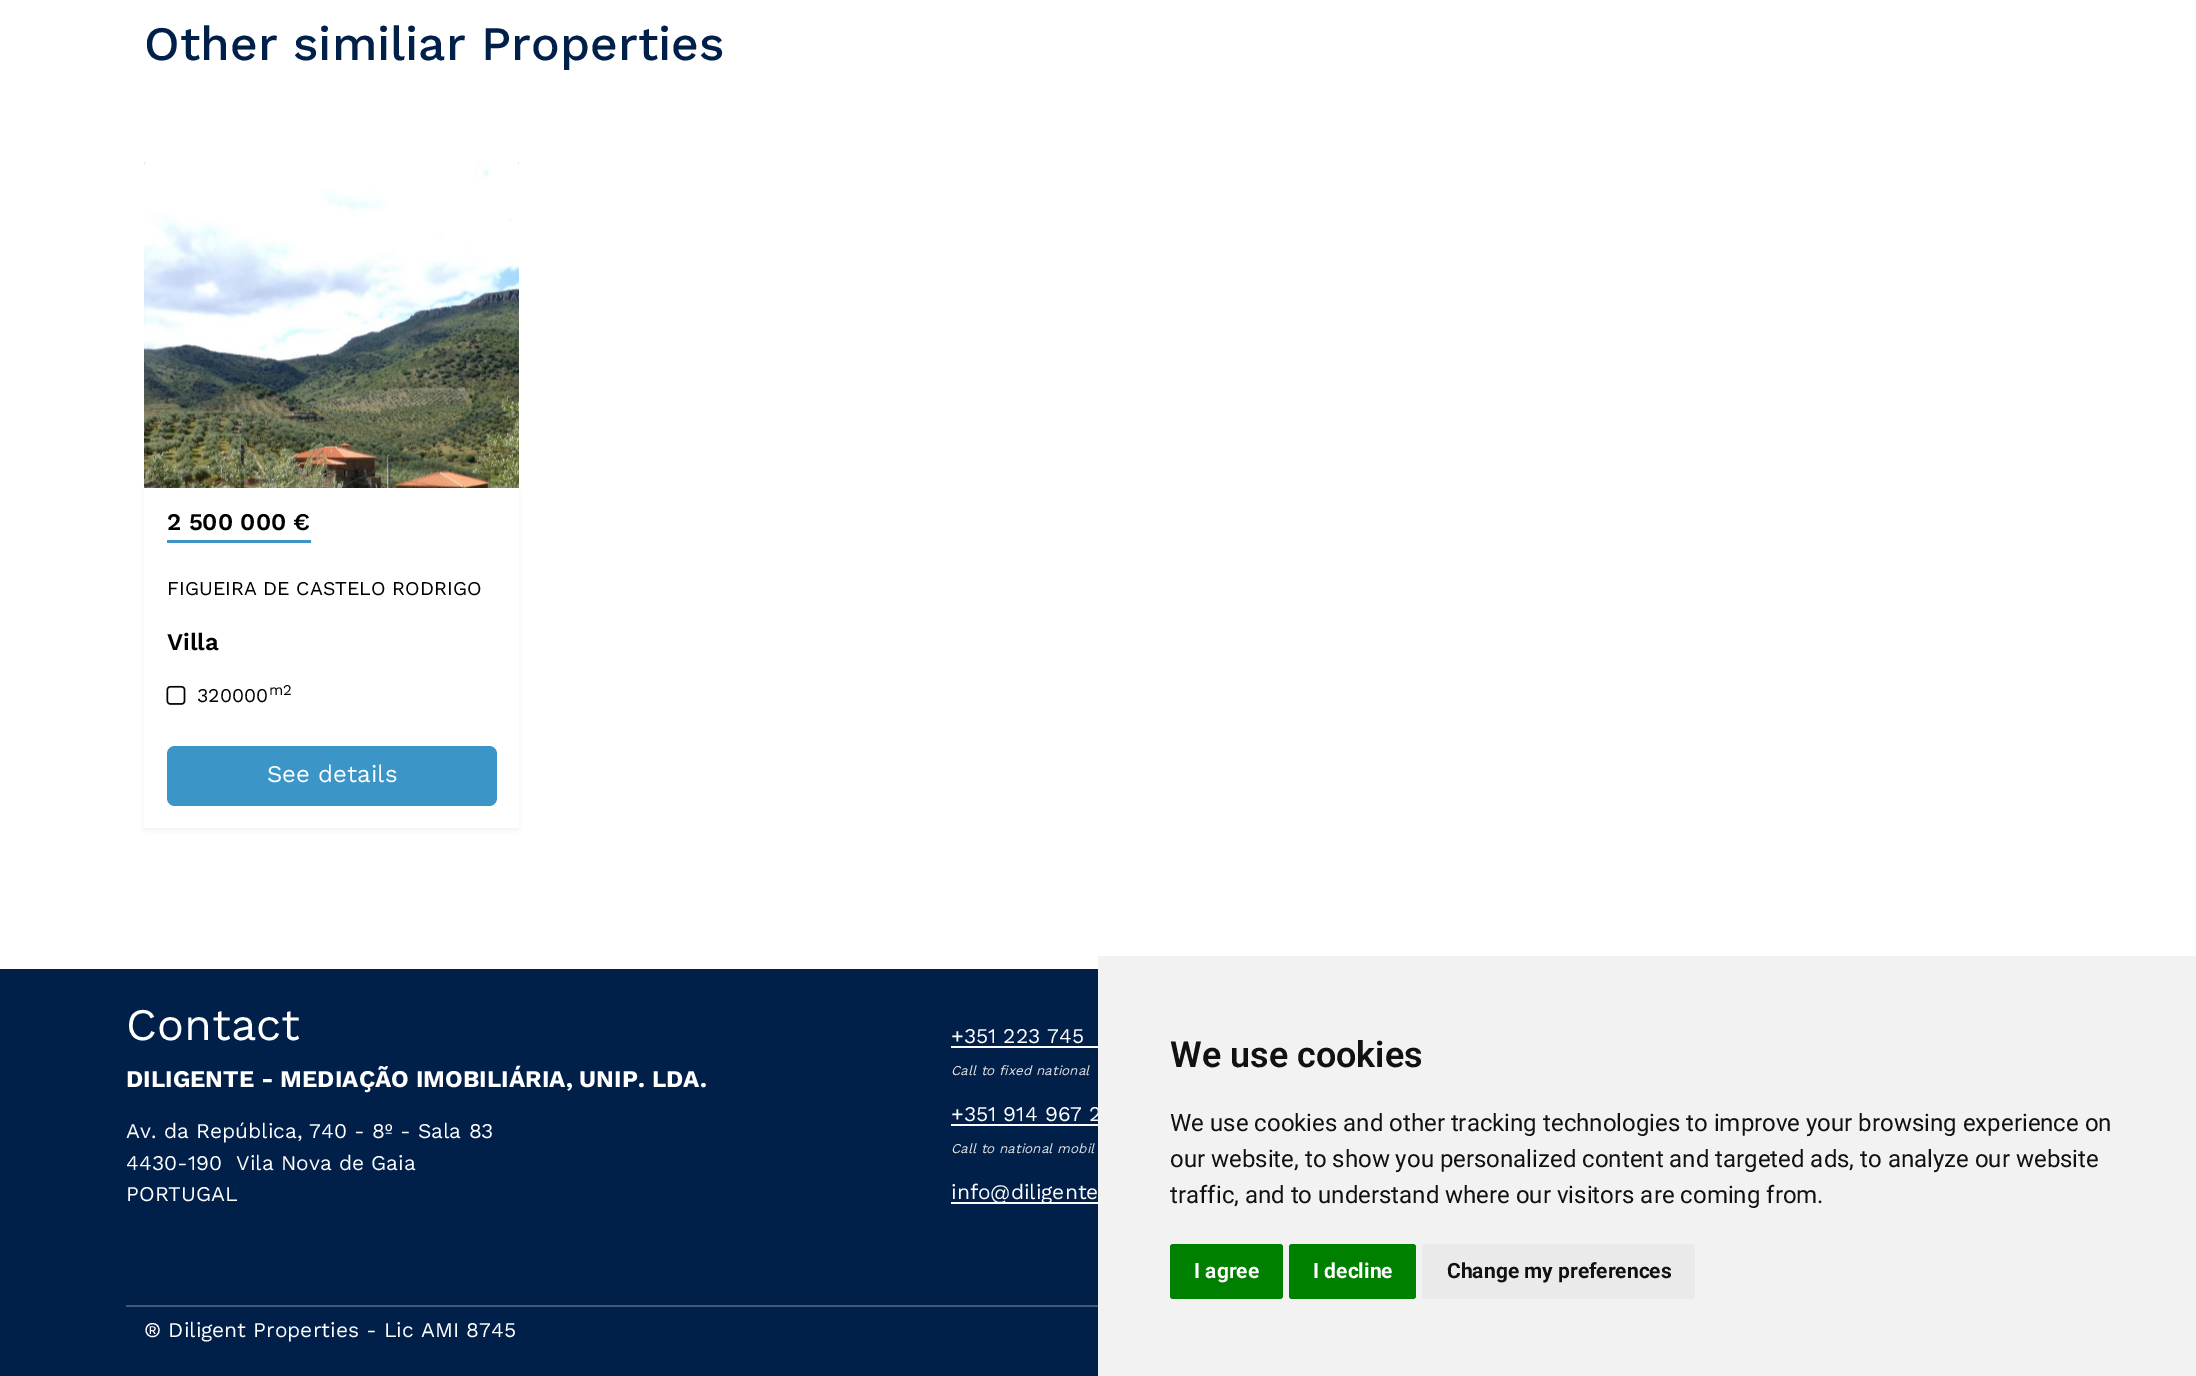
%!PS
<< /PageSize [2196 1376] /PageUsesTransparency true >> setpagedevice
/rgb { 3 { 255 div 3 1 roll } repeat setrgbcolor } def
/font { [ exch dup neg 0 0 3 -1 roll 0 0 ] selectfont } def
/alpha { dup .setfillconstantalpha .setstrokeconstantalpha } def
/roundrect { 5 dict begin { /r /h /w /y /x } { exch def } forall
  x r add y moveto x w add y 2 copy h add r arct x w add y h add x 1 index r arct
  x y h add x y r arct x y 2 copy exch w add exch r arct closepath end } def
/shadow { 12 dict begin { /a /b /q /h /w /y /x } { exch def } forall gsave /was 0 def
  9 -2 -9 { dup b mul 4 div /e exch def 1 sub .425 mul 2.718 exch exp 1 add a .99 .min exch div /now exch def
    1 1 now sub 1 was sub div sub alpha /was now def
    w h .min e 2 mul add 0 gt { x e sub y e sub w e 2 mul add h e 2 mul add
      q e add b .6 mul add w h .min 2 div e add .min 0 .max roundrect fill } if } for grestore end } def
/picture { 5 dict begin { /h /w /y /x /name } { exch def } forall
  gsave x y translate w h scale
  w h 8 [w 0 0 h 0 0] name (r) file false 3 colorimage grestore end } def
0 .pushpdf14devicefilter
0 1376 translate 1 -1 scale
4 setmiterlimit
255 255 255 rgb
0 0 2196 1376 rectfill
(img/1.rgb) 144 158 375 330 picture
0 0 0 rgb
144 489 375 341 0 3 0.05 shadow
255 255 255 rgb
144 488 375 340 rectfill
60 149 199 rgb
167 540 144 3 rectfill
(img/2.rgb) 166 685 20 20 picture
167 746 330 60 8 roundrect fill
[
  [0 969 1098 407 0 32 74]
  [951 1046 147 2 255 255 255]
  [951 1124 147 2 255 255 255]
  [951 1202 147 2 255 255 255]
  [126 1305 972 2 64 88 119]
] { aload pop rgb rectfill } forall
/WorkSans-Medium 48 font
0 32 74 rgb
144 60 moveto (Other similiar Properties) show
/WorkSans-SemiBold 24 font
0 0 0 rgb
167 530 moveto (2 500 000 €) show
/WorkSans-Regular 19.5 font
167 595 moveto (FIGUEIRA DE CASTELO RODRIGO) show
/WorkSans-SemiBold 24 font
167 650 moveto (Villa) show
/WorkSans-Regular 19.5 font
197 702 moveto (320000) show
/WorkSans-Regular 15 font
269 695 moveto (m2) show
/WorkSans-Regular 24 font
255 255 255 rgb
267 782 moveto (See details) show
/WorkSans-Regular 45 font
126 1040 moveto (Contact) show
/WorkSans-Bold 24 font
126 1087 moveto (DILIGENTE - MEDIAÇÃO IMOBILIÁRIA, UNIP. LDA.) show
/WorkSans-Regular 21 font
[
  [(Av. da República, 740 - 8º - Sala 83) 126 1138]
  [(4430-190) 126 1170]
  [(Vila Nova de Gaia) 236 1170]
  [(PORTUGAL) 126 1201]
  [(+351 223 745) 951 1043]
] { aload pop moveto show } forall
/WorkSans-Italic 13.5 font
226 226 226 rgb
951 1075 moveto (Call to fixed national) show
/WorkSans-Regular 21 font
255 255 255 rgb
951 1121 moveto (+351 914 967 2) show
/WorkSans-Italic 13.5 font
226 226 226 rgb
951 1153 moveto (Call to national mobil) show
/WorkSans-Regular 21 font
255 255 255 rgb
951 1199 moveto (info@diligente) show
144 1337 moveto (® Diligent Properties - Lic AMI 8745) show
242 242 242 rgb
1098 956 1098 420 rectfill
/Roboto-SemiBold 36 font
17 17 17 rgb
1170 1067 moveto (We use cookies) show
/Roboto-Regular 24 font
[
  [(We use cookies and other tracking technologies to improve your browsing experience on) 1170 1131]
  [(our website, to show you personalized content and targeted ads, to analyze our website) 1170 1167]
  [(traffic, and to understand where our visitors are coming from.) 1170 1203]
] { aload pop moveto show } forall
0 128 0 rgb
1170 1244 113 55 3 roundrect fill
/Roboto-Bold 21 font
255 255 255 rgb
1194 1278 moveto (I agree) show
0 128 0 rgb
1289 1244 127 55 3 roundrect fill
255 255 255 rgb
1313 1278 moveto (I decline) show
234 234 234 rgb
1422 1244 273 55 3 roundrect fill
17 17 17 rgb
1447 1278 moveto (Change my preferences) show
.poppdf14devicefilter showpage
